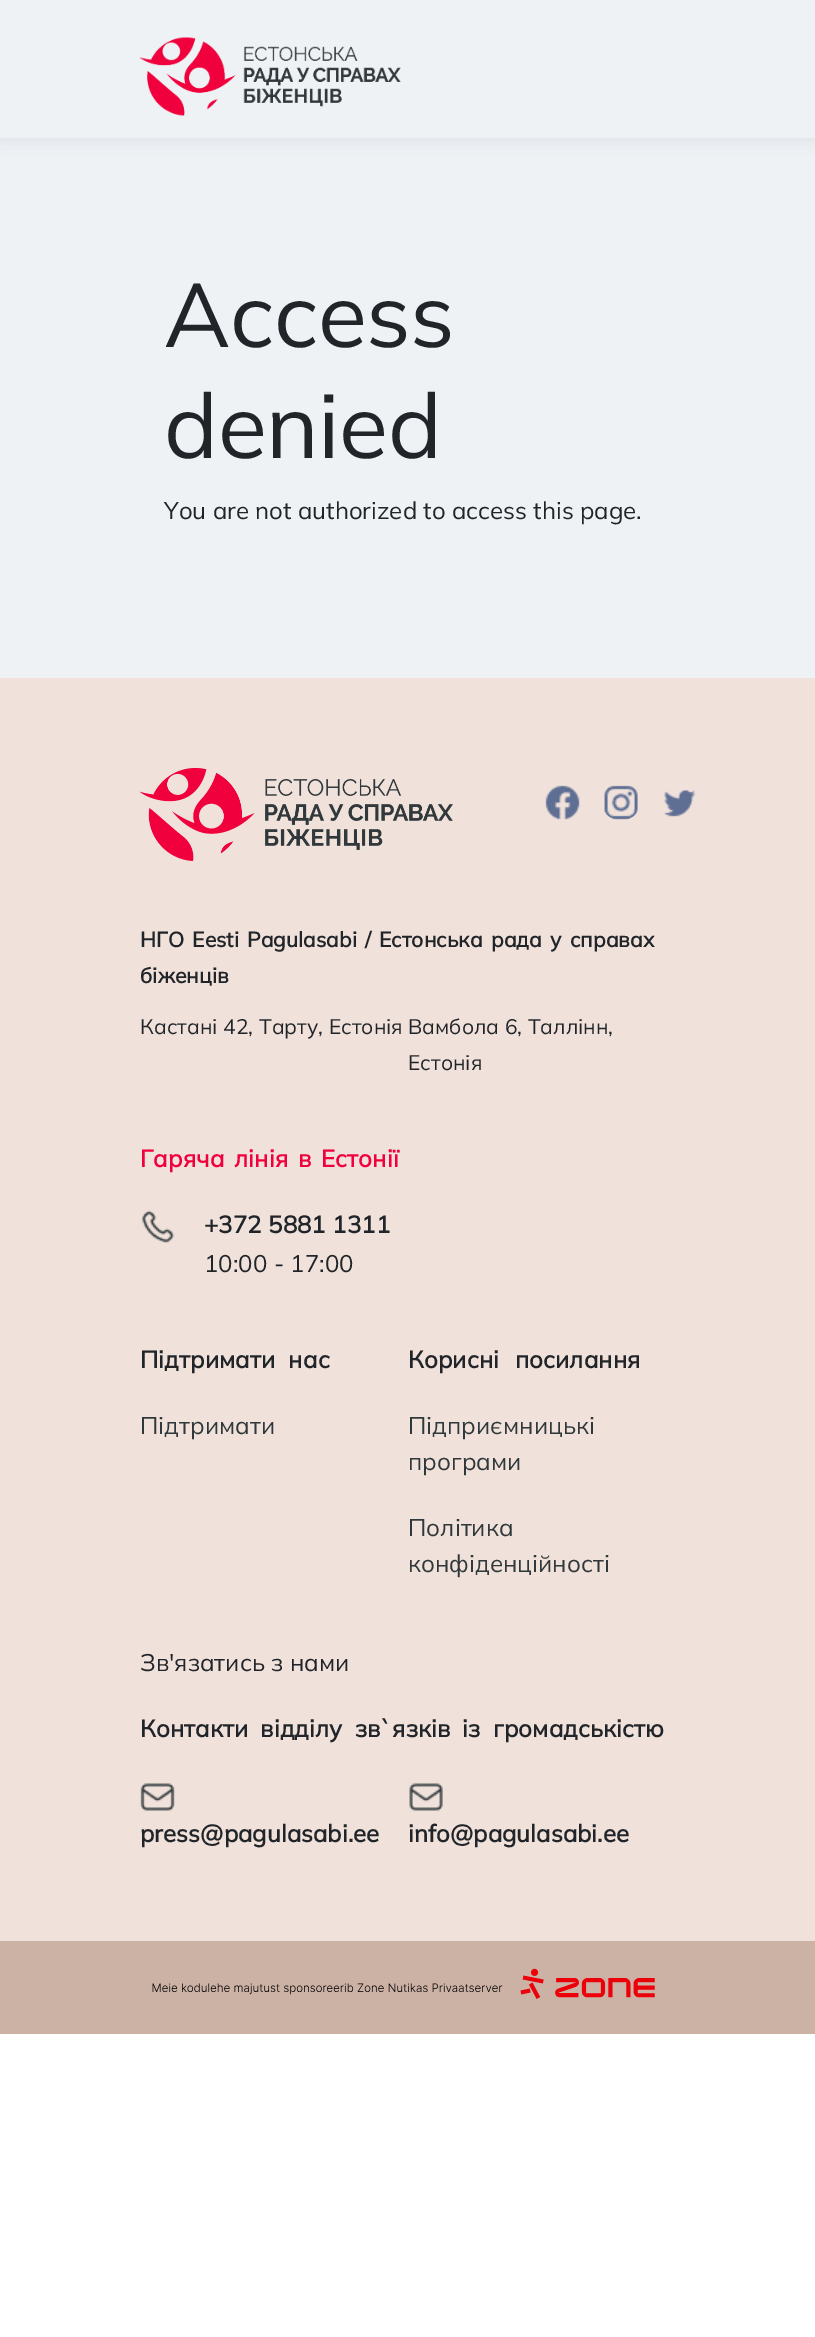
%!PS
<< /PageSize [815 2337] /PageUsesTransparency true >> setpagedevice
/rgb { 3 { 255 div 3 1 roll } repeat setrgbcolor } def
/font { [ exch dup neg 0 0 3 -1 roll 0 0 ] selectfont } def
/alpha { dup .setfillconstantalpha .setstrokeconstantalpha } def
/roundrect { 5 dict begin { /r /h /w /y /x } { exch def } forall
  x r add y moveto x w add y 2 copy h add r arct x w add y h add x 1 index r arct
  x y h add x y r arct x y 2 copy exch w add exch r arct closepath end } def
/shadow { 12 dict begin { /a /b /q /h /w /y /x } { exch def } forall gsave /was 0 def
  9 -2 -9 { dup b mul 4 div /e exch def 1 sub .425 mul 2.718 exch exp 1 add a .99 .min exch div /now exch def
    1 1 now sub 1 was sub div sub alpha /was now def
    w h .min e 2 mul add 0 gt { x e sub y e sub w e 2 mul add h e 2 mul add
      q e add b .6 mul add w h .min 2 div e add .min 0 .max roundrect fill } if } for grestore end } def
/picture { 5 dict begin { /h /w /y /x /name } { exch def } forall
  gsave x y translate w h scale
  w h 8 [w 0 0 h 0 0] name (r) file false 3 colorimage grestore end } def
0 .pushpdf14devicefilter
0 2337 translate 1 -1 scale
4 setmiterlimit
255 255 255 rgb
0 0 815 2337 rectfill
239 242 245 rgb
0 138 815 540 rectfill
17 31 63 rgb
0 2 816 138 0 7.5 0.08 shadow
239 242 245 rgb
0 0 815 138 rectfill
(img/1.rgb) 139 37 262 79 picture
240 226 219 rgb
0 678 815 1263 rectfill
(img/2.rgb) 139 768 314 93 picture
(img/3.rgb) 545 785 35 35 picture
(img/4.rgb) 604 785 34 35 picture
(img/5.rgb) 664 790 32 27 picture
(img/6.rgb) 142 1210 33 33 picture
(img/7.rgb) 140 1783 35 28 picture
(img/8.rgb) 409 1783 34 28 picture
204 177 165 rgb
0 1941 815 93 rectfill
(img/9.rgb) 152 1968 503 31 picture
/Mulish-Regular 90 font
33 37 41 rgb
164 347 moveto -0.5 0 (Access) ashow
164 458 moveto -0.5 0 (denied) ashow
/Mulish-Regular 24 font
164 519 moveto 0.05 0 (You are not authorized to access this page.) ashow
/Mulish-Bold 21 font
140 947 moveto 2.5 0 32 0.05 0 (НГО Eesti Pagulasabi / Естонська рада у справах) awidthshow
140 983 moveto 0.05 0 (біженців) ashow
/Mulish-Regular 21 font
140 1034 moveto 0.05 0 (Кастані 42, Тарту, Естонія) ashow
408 1034 moveto 0.05 0 (Вамбола 6, Таллінн,) ashow
408 1070 moveto 0.05 0 (Естонія) ashow
/Mulish-Bold 24 font
240 0 60 rgb
140 1167 moveto 3.5 0 32 0.05 0 (Гаряча лінія в Естонії) awidthshow
33 37 41 rgb
204 1233 moveto 0.05 0 (+372 5881 1311) ashow
/Mulish-Regular 24 font
204 1272 moveto 0.05 0 (10:00 - 17:00) ashow
/Mulish-Bold 24 font
140 1368 moveto 7 0 32 0.05 0 (Підтримати нас) awidthshow
/Mulish-Regular 24 font
49 56 59 rgb
140 1434 moveto 0.05 0 (Підтримати) ashow
/Mulish-Bold 24 font
33 37 41 rgb
408 1368 moveto 9 0 32 0.05 0 (Корисні посилання) awidthshow
/Mulish-Regular 24 font
49 56 59 rgb
408 1434 moveto 0.05 0 (Підприємницькі) ashow
408 1470 moveto 0.05 0 (програми) ashow
408 1536 moveto 0.05 0 (Політика) ashow
408 1572 moveto 0.05 0 (конфіденційності) ashow
33 37 41 rgb
140 1671 moveto (Зв'язатись з нами) show
/Mulish-Bold 24 font
140 1737 moveto 6 0 32 0.05 0 (Контакти відділу зв`язків із громадськістю) awidthshow
140 1842 moveto 0.05 0 (press@pagulasabi.ee) ashow
408 1842 moveto 0.05 0 (info@pagulasabi.ee) ashow
.poppdf14devicefilter showpage
